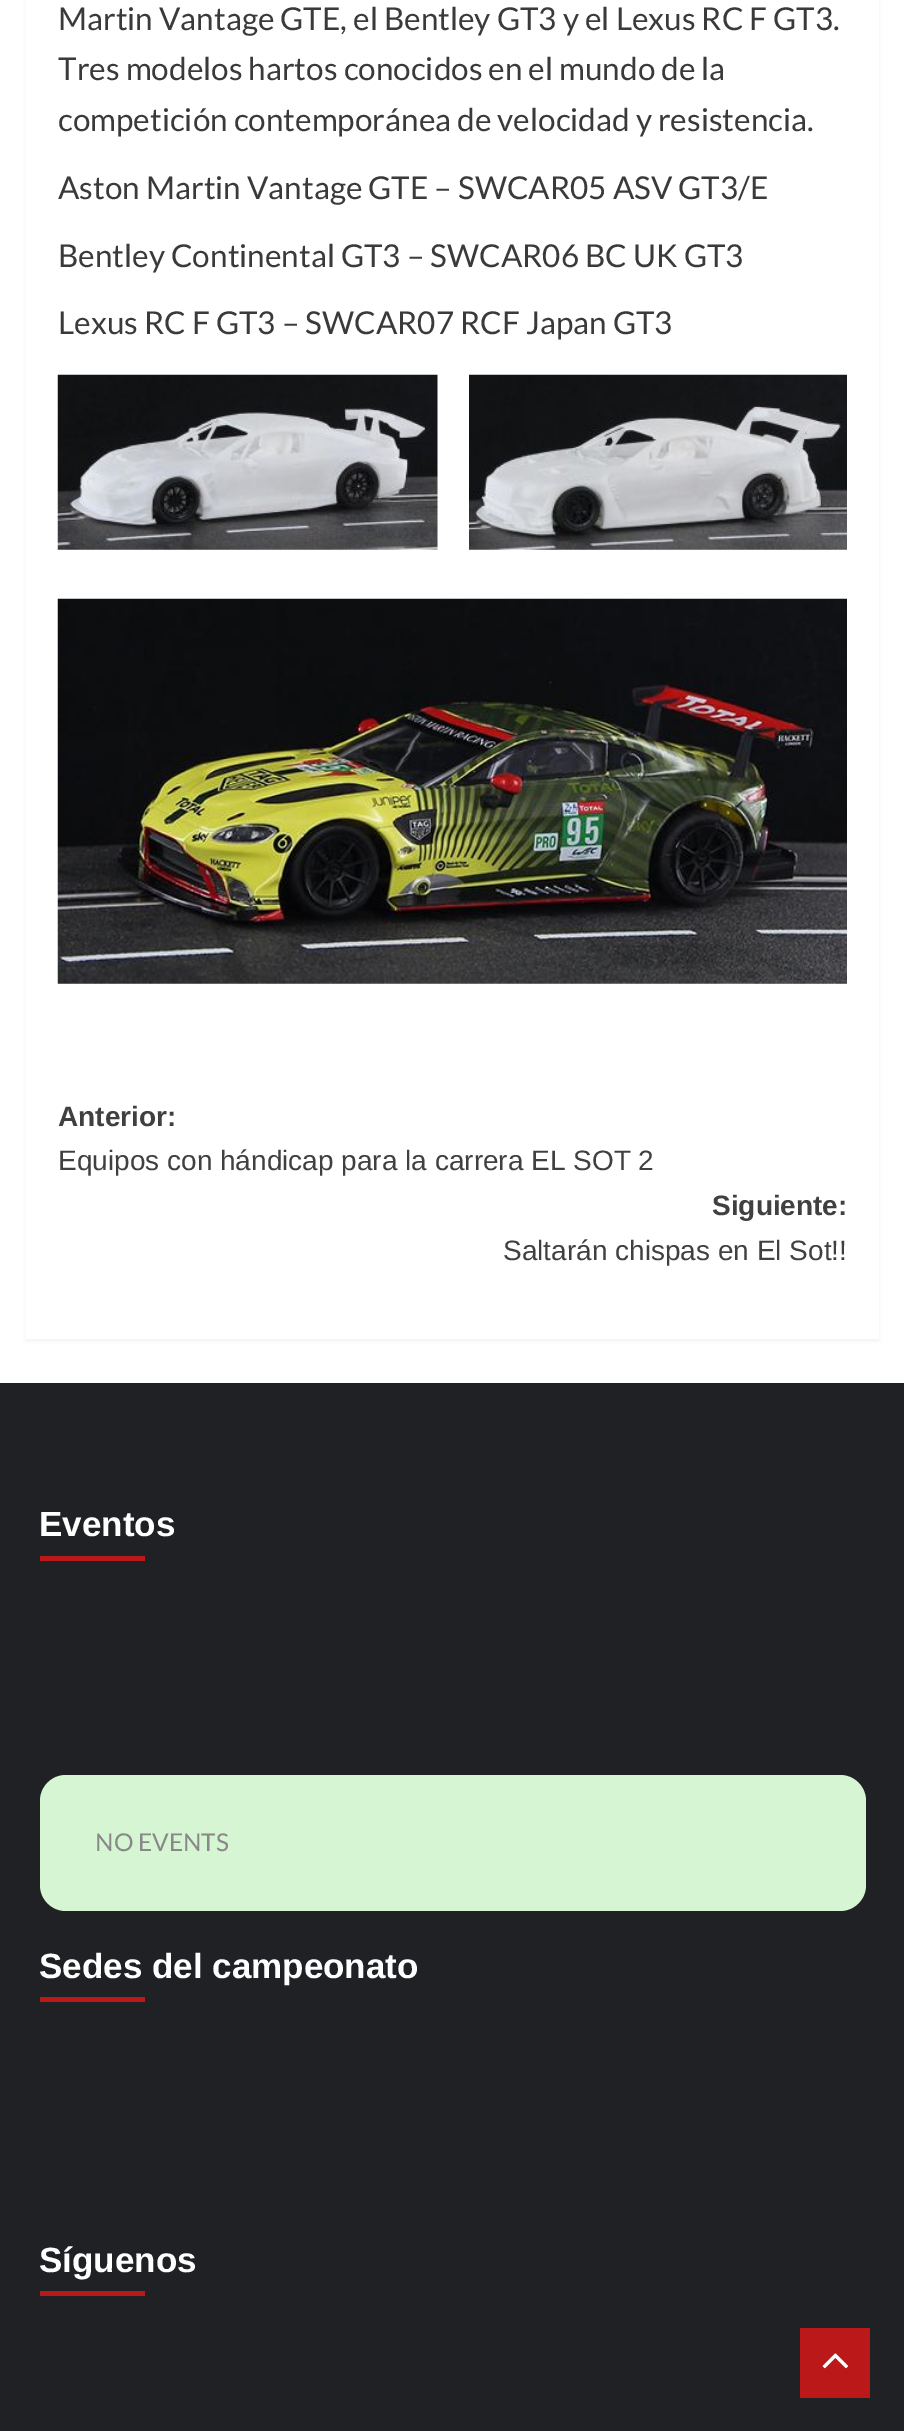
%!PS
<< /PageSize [904 2431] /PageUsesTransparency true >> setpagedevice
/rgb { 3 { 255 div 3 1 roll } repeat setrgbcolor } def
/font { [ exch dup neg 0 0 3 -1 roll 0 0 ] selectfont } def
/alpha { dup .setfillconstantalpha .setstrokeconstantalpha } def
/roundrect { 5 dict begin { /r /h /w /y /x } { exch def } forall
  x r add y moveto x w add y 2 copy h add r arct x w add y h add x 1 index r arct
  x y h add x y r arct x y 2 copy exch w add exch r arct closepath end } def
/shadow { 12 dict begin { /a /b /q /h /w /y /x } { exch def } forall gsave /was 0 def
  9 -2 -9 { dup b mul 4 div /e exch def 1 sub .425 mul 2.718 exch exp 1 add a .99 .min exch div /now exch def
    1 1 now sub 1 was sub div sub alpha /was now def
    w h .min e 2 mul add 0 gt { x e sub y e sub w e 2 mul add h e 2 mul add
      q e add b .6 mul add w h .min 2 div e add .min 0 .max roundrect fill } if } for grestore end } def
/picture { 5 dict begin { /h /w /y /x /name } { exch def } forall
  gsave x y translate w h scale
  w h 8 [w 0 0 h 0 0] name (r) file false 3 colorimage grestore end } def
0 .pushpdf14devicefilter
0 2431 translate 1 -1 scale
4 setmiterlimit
255 255 255 rgb
0 0 904 2431 rectfill
0 0 0 rgb
26 -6 853 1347 0 2 0.05 shadow
255 255 255 rgb
26 0 853 1339 rectfill
(img/1.rgb) 57 374 381 176 picture
(img/2.rgb) 469 374 378 176 picture
(img/3.rgb) 57 598 790 386 picture
31 33 37 rgb
0 1383 904 1048 rectfill
187 25 25 rgb
40 1556 105 5 rectfill
214 245 210 rgb
40 1775 826 136 26 roundrect fill
[
  [40 1997 105 5 187 25 25]
  [40 2291 105 5 187 25 25]
  [800 2328 70 70 187 25 25]
] { aload pop rgb rectfill } forall
(img/4.rgb) 822 2353 26 16 picture
/Lato-Regular 31.5 font
58 58 58 rgb
[
  [(Martin Vantage GTE, el Bentley GT3 y el Lexus RC F GT3.) 58 30]
  [(Tres modelos hartos conocidos en el mundo de la) 58 80]
  [(competición contemporánea de velocidad y resistencia.) 58 131]
  [(Aston Martin Vantage GTE – SWCAR05 ASV GT3/E) 58 199]
  [(Bentley Continental GT3 – SWCAR06 BC UK GT3) 58 267]
  [(Lexus RC F GT3 – SWCAR07 RCF Japan GT3) 58 334]
] { aload pop moveto show } forall
/LiberationSans-Bold 28 font
64 64 64 rgb
58 1126 moveto (Anterior:) show
/LiberationSans-Regular 28 font
58 1170 moveto (Equipos con hándicap para la carrera EL SOT 2) show
/LiberationSans-Bold 28 font
712 1215 moveto (Siguiente:) show
/LiberationSans-Regular 28 font
503 1260 moveto (Saltarán chispas en El Sot!!) show
/LiberationSans-Bold 35 font
255 255 255 rgb
39 1536 moveto (Eventos) show
/Lato-Regular 24.5 font
136 136 136 rgb
95 1851 moveto (NO EVENTS) show
/LiberationSans-Bold 35 font
255 255 255 rgb
39 1978 moveto (Sedes del campeonato) show
39 2272 moveto (Síguenos) show
.poppdf14devicefilter showpage
